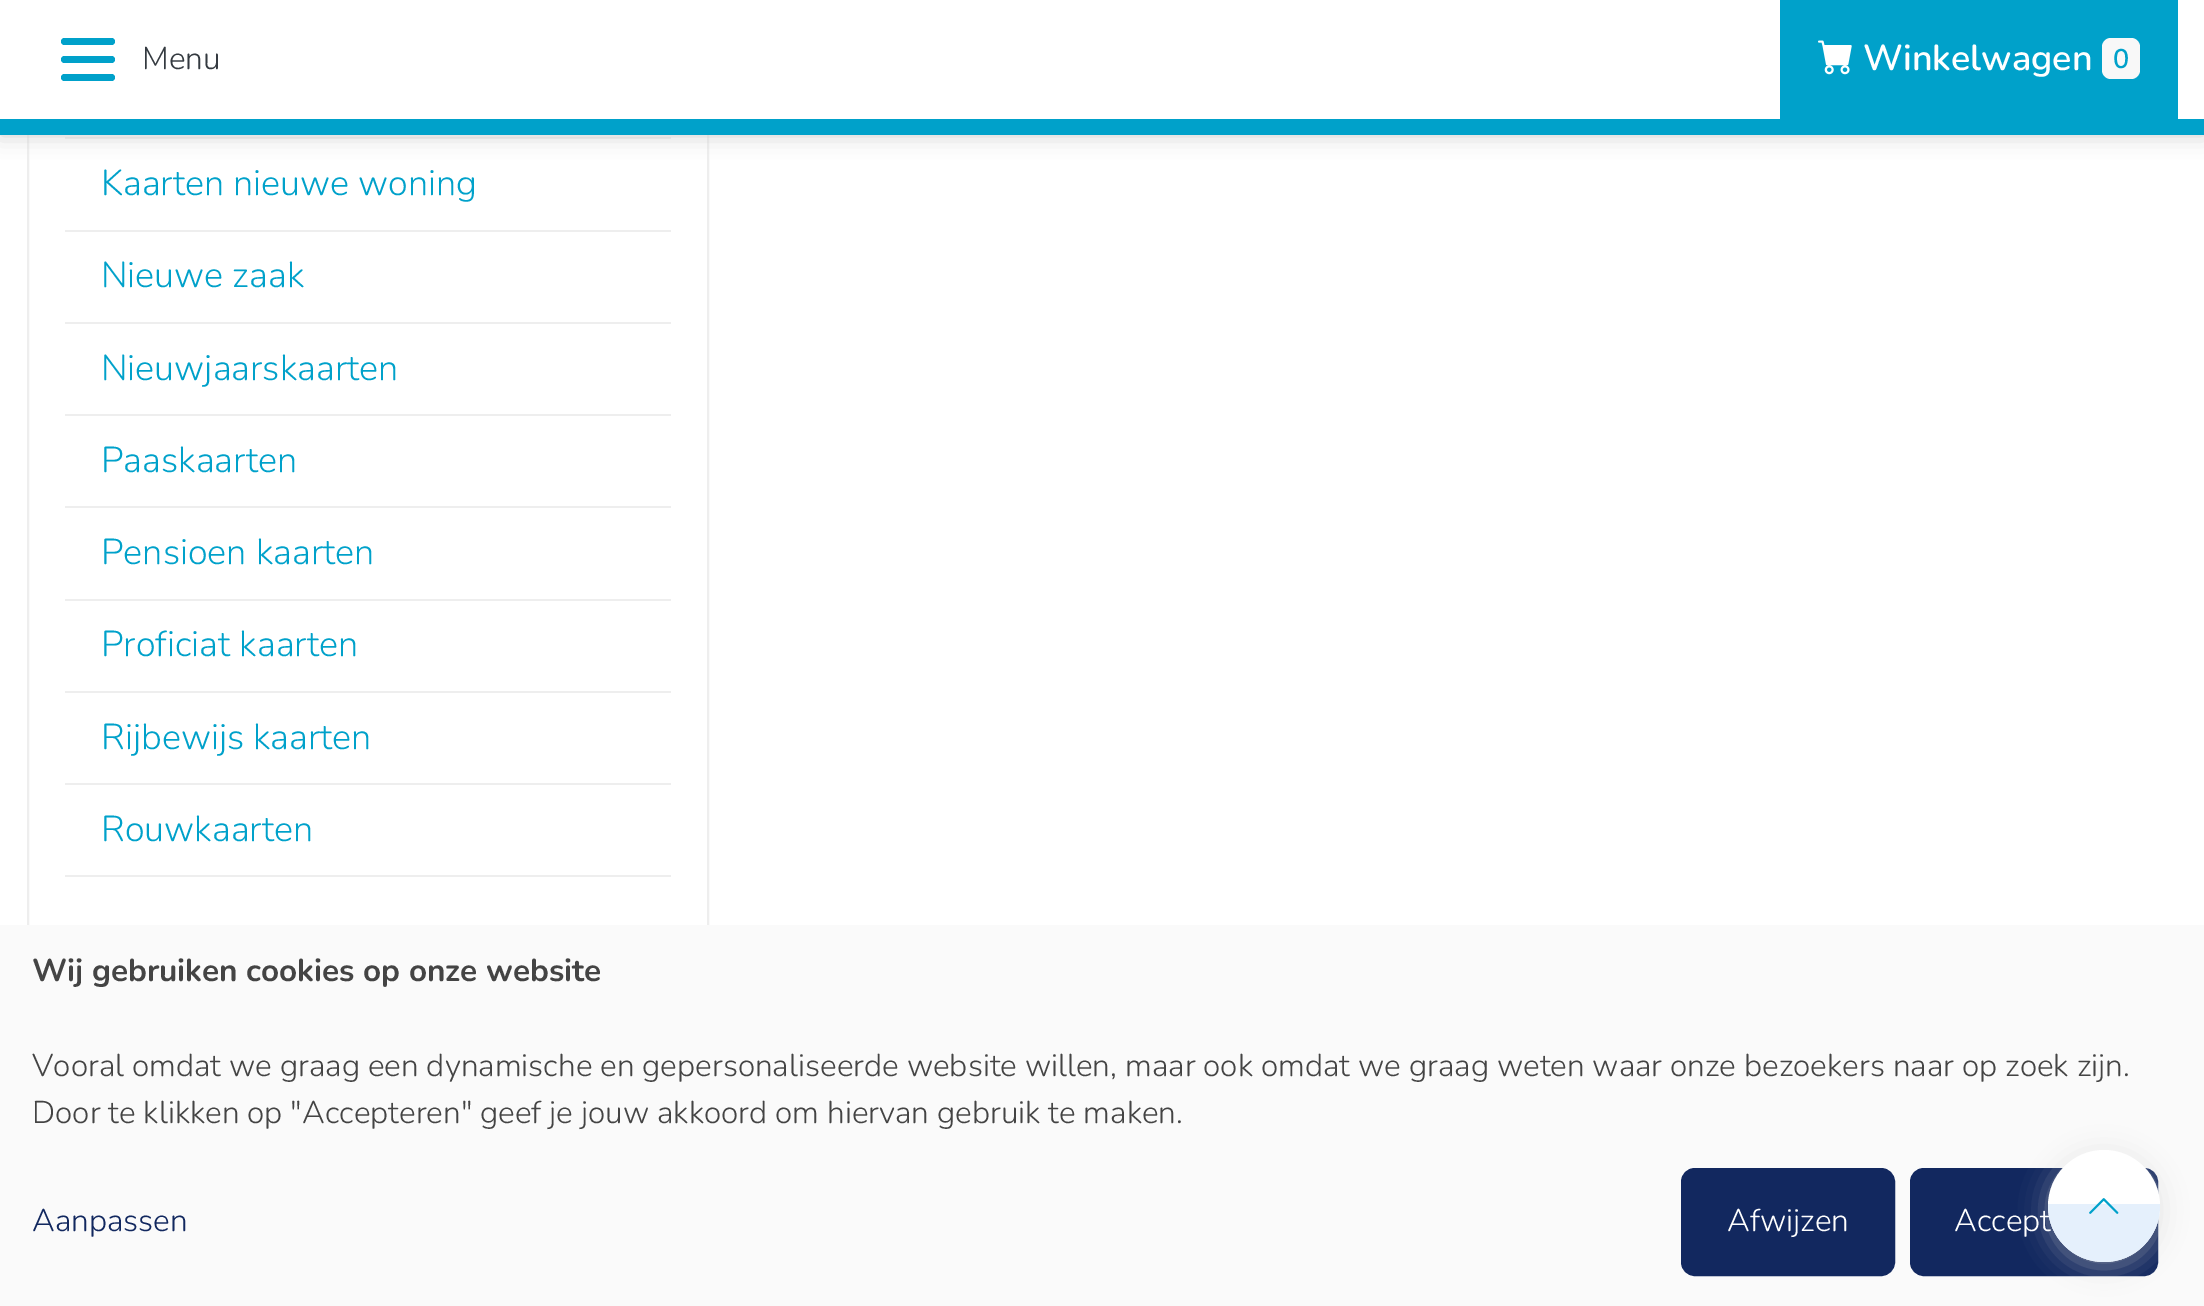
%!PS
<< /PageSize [2204 1306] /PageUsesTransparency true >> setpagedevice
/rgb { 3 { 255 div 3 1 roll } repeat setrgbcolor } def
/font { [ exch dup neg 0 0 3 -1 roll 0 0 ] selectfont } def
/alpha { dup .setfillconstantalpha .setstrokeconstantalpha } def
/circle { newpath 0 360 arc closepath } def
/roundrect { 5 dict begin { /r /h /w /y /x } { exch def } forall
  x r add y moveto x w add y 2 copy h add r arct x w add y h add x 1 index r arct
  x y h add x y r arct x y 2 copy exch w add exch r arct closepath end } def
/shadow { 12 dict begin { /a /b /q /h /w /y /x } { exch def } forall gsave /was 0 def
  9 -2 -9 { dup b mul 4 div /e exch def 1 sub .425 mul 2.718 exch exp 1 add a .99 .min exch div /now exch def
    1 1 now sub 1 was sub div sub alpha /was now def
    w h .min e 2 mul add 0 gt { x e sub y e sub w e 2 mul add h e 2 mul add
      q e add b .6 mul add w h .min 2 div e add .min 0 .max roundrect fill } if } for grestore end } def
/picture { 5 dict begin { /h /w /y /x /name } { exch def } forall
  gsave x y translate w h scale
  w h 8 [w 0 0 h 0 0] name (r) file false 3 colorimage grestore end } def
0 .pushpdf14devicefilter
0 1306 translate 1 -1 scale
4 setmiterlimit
255 255 255 rgb
0 0 2204 1306 rectfill
238 238 238 rgb
2 setlinewidth
28 -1 680 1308 rectstroke
65 137 606 2 rectfill
205 205 205 rgb
0 0 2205 135 0 11 1 shadow
255 255 255 rgb
0 0 2204 119 rectfill
0 161 202 rgb
0 119 2204 16 rectfill
61 56 54 7 3.5 roundrect fill
61 38 54 7 3.5 roundrect fill
61 74 54 7 3.5 roundrect fill
1780 0 398 119 rectfill
(img/1.rgb) 1818 40 34 35 picture
248 248 248 rgb
2102 38 38 41 9 roundrect fill
[
  [65 230 606 2 238 238 238]
  [65 322 606 2 238 238 238]
  [65 414 606 2 238 238 238]
  [65 506 606 2 238 238 238]
  [65 599 606 2 238 238 238]
  [65 691 606 2 238 238 238]
  [65 783 606 2 238 238 238]
  [65 875 606 2 238 238 238]
  [0 925 2204 381 250 250 250]
] { aload pop rgb rectfill } forall
18 40 95 rgb
1913.5 1171.5 241 101 10.5 roundrect gsave fill grestore
7 setlinewidth
stroke
209 209 209 rgb
2048 1154 112 113 56 13.5 0.5 shadow
255 255 255 rgb
2104 1206 56 circle fill
18 40 95 rgb
1684.5 1171.5 207 101 10.5 roundrect gsave fill grestore
stroke
/Nunito-Light 31.5 font
52 58 64 rgb
142 69 moveto (Menu) show
/Nunito-SemiBold 36 font
255 255 255 rgb
1863 70 moveto (Winkelwagen) show
/Nunito-SemiBold 27 font
0 161 202 rgb
2113 68 moveto (0) show
/Nunito-Light 36 font
[
  [(Kaarten nieuwe woning) 101 195]
  [(Nieuwe zaak) 101 287]
  [(Nieuwjaarskaarten) 101 380]
  [(Paaskaarten) 101 472]
  [(Pensioen kaarten) 101 564]
  [(Proficiat kaarten) 101 656]
  [(Rijbewijs kaarten) 101 749]
  [(Rouwkaarten) 101 841]
] { aload pop moveto show } forall
/Nunito-Bold 31.5 font
68 68 68 rgb
32 981 moveto (Wij gebruiken cookies op onze website) show
/Nunito-Light 31.5 font
32 1076 moveto (Vooral omdat we graag een dynamische en gepersonaliseerde website willen, maar ook omdat we graag weten waar onze bezoekers naar op zoek zijn.) show
32 1123 moveto (Door te klikken op "Accepteren" geef je jouw akkoord om hiervan gebruik te maken.) show
18 40 95 rgb
32 1231 moveto (Aanpassen) show
255 255 255 rgb
1727 1231 moveto (Afwijzen) show
1954 1231 moveto (Accept) show
gsave
2048 1150 112 112 56 roundrect clip newpath
229 240 252 rgb
2048 1204 moveto 2160 1204 lineto 2160 1206 lineto 2160 1237 2135 1262 2104 1262 curveto 2073 1262 2048 1237 2048 1206 curveto closepath fill
grestore
(img/2.rgb) 2089 1198 30 16 picture
.poppdf14devicefilter showpage
